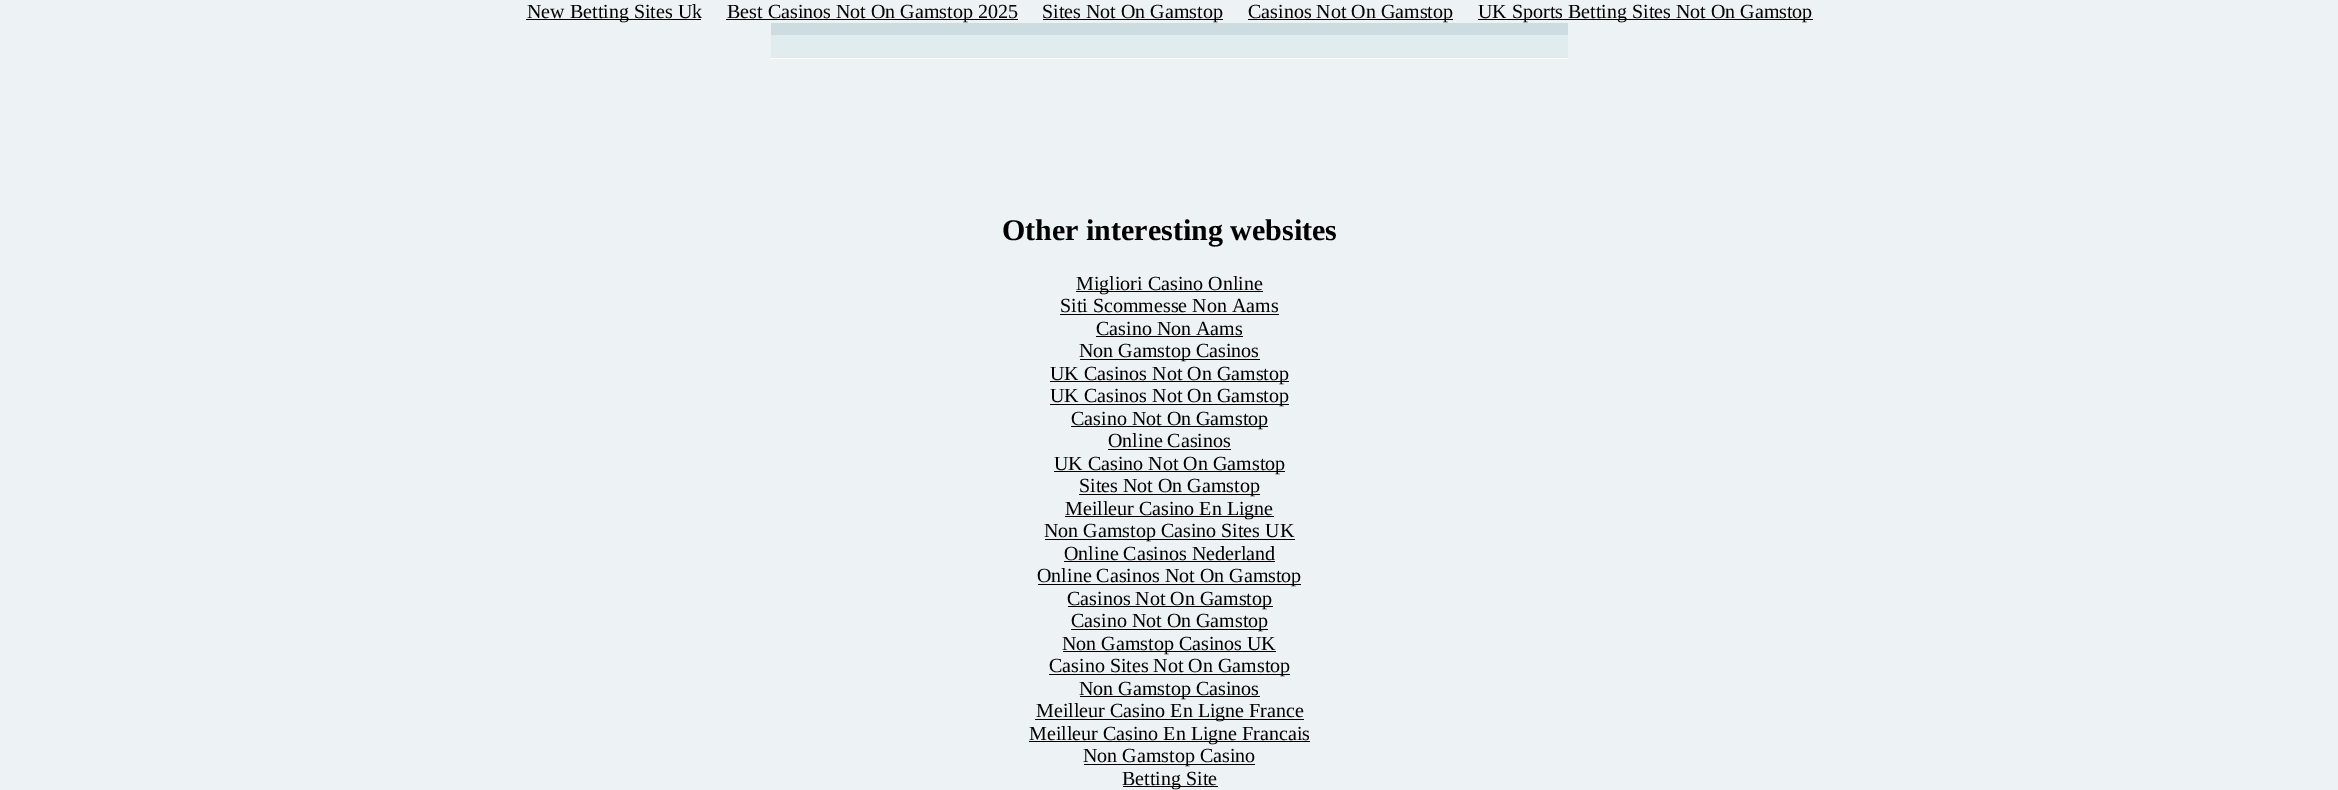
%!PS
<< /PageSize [2338 790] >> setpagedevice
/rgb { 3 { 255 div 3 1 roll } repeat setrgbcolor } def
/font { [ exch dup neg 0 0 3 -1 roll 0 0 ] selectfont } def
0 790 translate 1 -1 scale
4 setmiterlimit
237 242 245 rgb
0 0 2338 790 rectfill
[
  [526 19 175 1 0 0 0]
  [726 19 292 1 0 0 0]
  [1043 19 180 1 0 0 0]
  [1248 19 205 1 0 0 0]
  [1478 19 335 1 0 0 0]
  [771 23 797 12 205 220 224]
  [771 35 797 23 224 236 237]
  [771 58 797 1 255 255 255]
  [1076 291 187 1 0 0 0]
  [1060 314 219 1 0 0 0]
  [1096 336 147 1 0 0 0]
  [1080 359 180 1 0 0 0]
  [1050 381 239 1 0 0 0]
  [1050 404 239 1 0 0 0]
  [1071 426 197 1 0 0 0]
  [1108 449 123 1 0 0 0]
  [1054 471 231 1 0 0 0]
  [1079 494 181 1 0 0 0]
  [1065 516 209 1 0 0 0]
  [1045 539 250 1 0 0 0]
  [1064 561 211 1 0 0 0]
  [1038 584 263 1 0 0 0]
  [1068 606 205 1 0 0 0]
  [1071 629 197 1 0 0 0]
  [1063 651 213 1 0 0 0]
  [1049 674 241 1 0 0 0]
  [1080 696 180 1 0 0 0]
  [1035 719 269 1 0 0 0]
  [1029 741 281 1 0 0 0]
  [1084 764 171 1 0 0 0]
  [1123 786 95 1 0 0 0]
] { aload pop rgb rectfill } forall
/LiberationSerif-Regular 20 font
[
  [(New Betting Sites Uk) 527 18]
  [(Best Casinos Not On Gamstop 2025) 727 18]
  [(Sites Not On Gamstop) 1042 18]
  [(Casinos Not On Gamstop) 1248 18]
  [(UK Sports Betting Sites Not On Gamstop) 1478 18]
] { aload pop moveto show } forall
/LiberationSerif-Bold 30 font
1002 240 moveto (Other interesting websites) show
/LiberationSerif-Regular 20 font
[
  [(Migliori Casino Online) 1076 290]
  [(Siti Scommesse Non Aams) 1060 312]
  [(Casino Non Aams) 1096 335]
  [(Non Gamstop Casinos) 1079 357]
  [(UK Casinos Not On Gamstop) 1050 380]
  [(UK Casinos Not On Gamstop) 1050 402]
  [(Casino Not On Gamstop) 1071 425]
  [(Online Casinos) 1108 447]
  [(UK Casino Not On Gamstop) 1054 470]
  [(Sites Not On Gamstop) 1079 492]
  [(Meilleur Casino En Ligne) 1065 515]
  [(Non Gamstop Casino Sites UK) 1044 537]
  [(Online Casinos Nederland) 1064 560]
  [(Online Casinos Not On Gamstop) 1037 582]
  [(Casinos Not On Gamstop) 1067 605]
  [(Casino Not On Gamstop) 1071 627]
  [(Non Gamstop Casinos UK) 1062 650]
  [(Casino Sites Not On Gamstop) 1049 672]
  [(Non Gamstop Casinos) 1079 695]
  [(Meilleur Casino En Ligne France) 1036 717]
  [(Meilleur Casino En Ligne Francais) 1029 740]
  [(Non Gamstop Casino) 1083 762]
  [(Betting Site) 1122 785]
] { aload pop moveto show } forall
showpage
